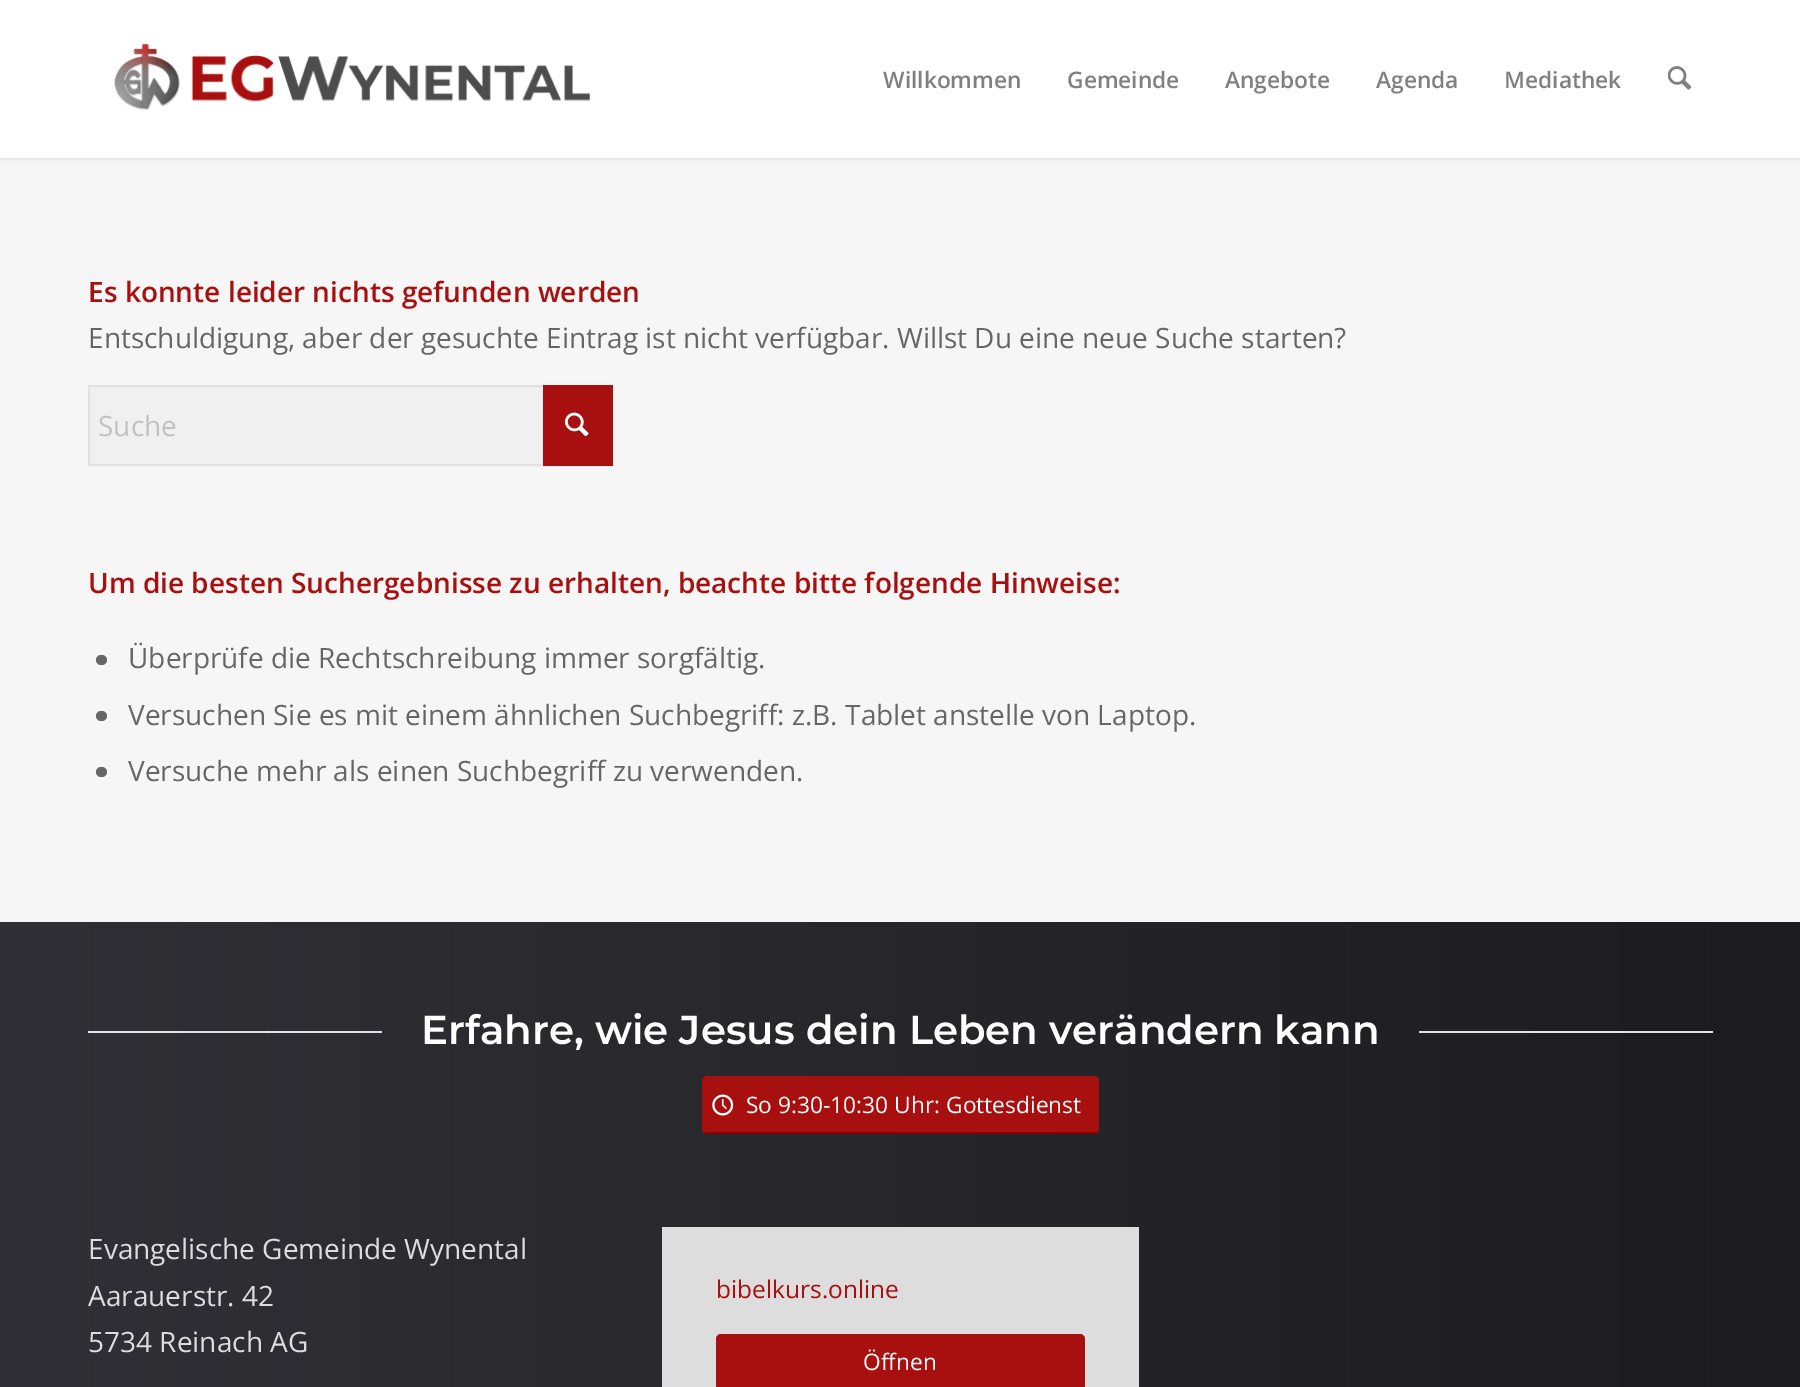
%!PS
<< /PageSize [1800 1387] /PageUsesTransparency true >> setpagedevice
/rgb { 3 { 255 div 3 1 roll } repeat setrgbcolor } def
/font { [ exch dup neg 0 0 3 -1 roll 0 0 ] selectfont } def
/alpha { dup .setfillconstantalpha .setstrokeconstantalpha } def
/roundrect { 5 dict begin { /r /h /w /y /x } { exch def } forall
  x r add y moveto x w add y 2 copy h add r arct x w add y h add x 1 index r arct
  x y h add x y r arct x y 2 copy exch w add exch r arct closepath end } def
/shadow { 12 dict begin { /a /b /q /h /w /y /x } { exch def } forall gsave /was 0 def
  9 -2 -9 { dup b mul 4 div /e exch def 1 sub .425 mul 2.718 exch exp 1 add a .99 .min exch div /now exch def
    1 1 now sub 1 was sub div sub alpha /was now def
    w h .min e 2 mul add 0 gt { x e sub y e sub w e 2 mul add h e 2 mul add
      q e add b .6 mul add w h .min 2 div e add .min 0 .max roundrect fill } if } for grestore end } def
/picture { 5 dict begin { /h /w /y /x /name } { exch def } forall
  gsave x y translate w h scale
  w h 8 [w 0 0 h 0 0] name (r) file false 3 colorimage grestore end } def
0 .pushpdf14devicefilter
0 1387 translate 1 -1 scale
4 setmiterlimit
255 255 255 rgb
0 0 1800 1387 rectfill
246 246 246 rgb
0 158 1800 764 rectfill
0 0 0 rgb
-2 -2 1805 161 0 2 0.1 shadow
255 255 255 rgb
0 0 1800 158 rectfill
(img/1.rgb) 114 44 476 67 picture
(img/2.rgb) 1668 66 23 24 picture
240 240 240 rgb
90 387 453 77 rectfill
225 225 225 rgb
2 setlinewidth
89 386 523 79 rectstroke
168 16 16 rgb
543 385 70 81 rectfill
(img/3.rgb) 565 412 24 25 picture
102 102 102 rgb
96 655 11 10 5 roundrect fill
96 711 11 10 5 roundrect fill
96 767 11 10 5 roundrect fill
gsave 0 922 moveto 1800 922 lineto 1800 1387 lineto 0 1387 lineto closepath clip newpath
<< /ShadingType 2 /ColorSpace /DeviceRGB /Coords [0 1359 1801 1359] /Extend [true true] /Function << /FunctionType 2 /Domain [0 1] /C0 [0.188 0.188 0.212] /C1 [0.11 0.11 0.122] /N 1 >> >> shfill grestore
225 225 225 rgb
88 1031 294 2 rectfill
1419 1031 294 2 rectfill
168 16 16 rgb
702 1076 397 58 5 roundrect fill
134 0 0 rgb
705 1132 392 2 rectfill
(img/4.rgb) 712 1094 22 22 picture
221 221 221 rgb
662 1227 477 160 rectfill
168 16 16 rgb
716 1334 369 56 5 roundrect fill
/OpenSans-SemiBold 22.75 font
128 128 128 rgb
[
  [(Willkommen) 883 88]
  [(Gemeinde) 1067 88]
  [(Angebote) 1225 88]
  [(Agenda) 1376 88]
  [(Mediathek) 1504 88]
] { aload pop moveto show } forall
/OpenSans-SemiBold 28 font
168 16 16 rgb
88 302 moveto (Es konnte leider nichts gefunden werden) show
/OpenSans-Regular 28 font
102 102 102 rgb
88 348 moveto (Entschuldigung, aber der gesuchte Eintrag ist nicht verfügbar. Willst Du eine neue Suche starten?) show
193 193 193 rgb
98 436 moveto (Suche) show
/OpenSans-SemiBold 28 font
168 16 16 rgb
88 593 moveto (Um die besten Suchergebnisse zu erhalten, beachte bitte folgende Hinweise:) show
/OpenSans-Regular 28 font
102 102 102 rgb
[
  [(Überprüfe die Rechtschreibung immer sorgfältig.) 128 668]
  [(Versuchen Sie es mit einem ähnlichen Suchbegriff: z.B. Tablet anstelle von Laptop.) 128 725]
  [(Versuche mehr als einen Suchbegriff zu verwenden.) 128 781]
] { aload pop moveto show } forall
/Montserrat-SemiBold 40.25 font
255 255 255 rgb
421 1044 moveto (Erfahre, wie Jesus dein Leben verändern kann) show
/OpenSans-Regular 22.75 font
746 1113 moveto (So 9:30-10:30 Uhr: Gottesdienst) show
/OpenSans-Regular 28 font
221 221 221 rgb
[
  [(Evangelische Gemeinde Wynental) 88 1259]
  [(Aarauerstr. 42) 88 1306]
  [(5734 Reinach AG) 88 1352]
] { aload pop moveto show } forall
/OpenSans-Regular 24.5 font
168 16 16 rgb
716 1298 moveto (bibelkurs.online) show
/OpenSans-Regular 22.75 font
255 255 255 rgb
863 1370 moveto (Öffnen) show
.poppdf14devicefilter showpage
